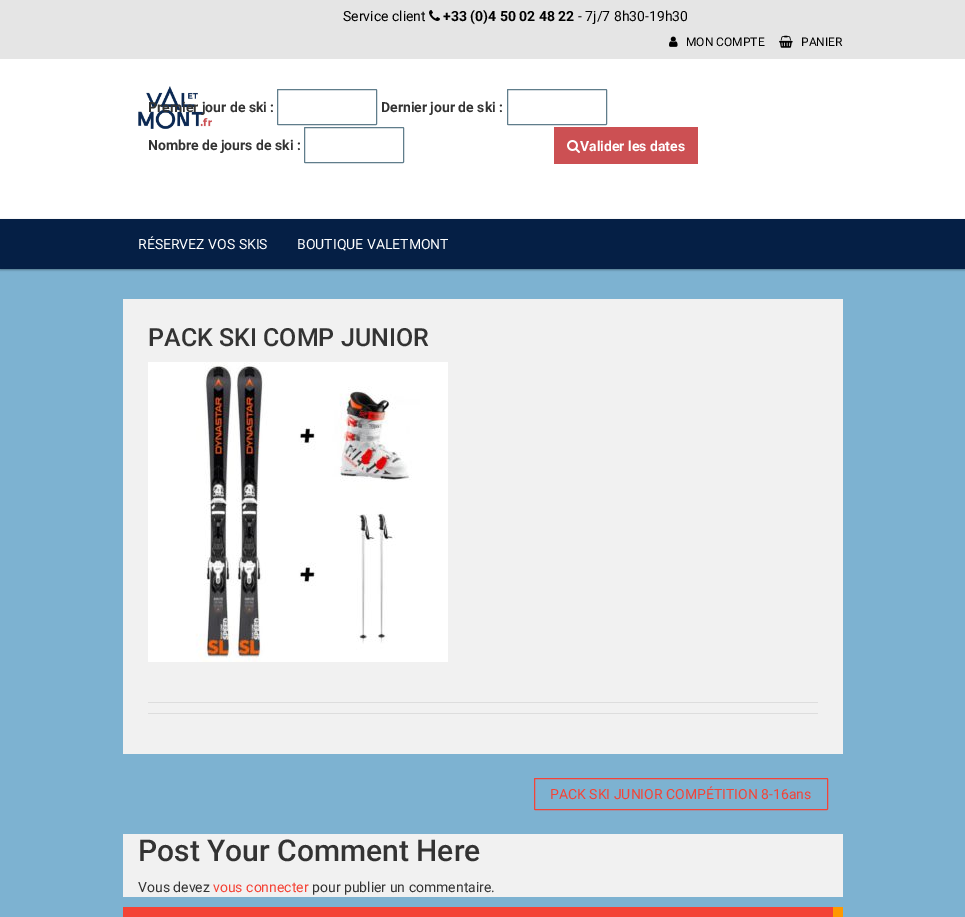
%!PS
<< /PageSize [965 917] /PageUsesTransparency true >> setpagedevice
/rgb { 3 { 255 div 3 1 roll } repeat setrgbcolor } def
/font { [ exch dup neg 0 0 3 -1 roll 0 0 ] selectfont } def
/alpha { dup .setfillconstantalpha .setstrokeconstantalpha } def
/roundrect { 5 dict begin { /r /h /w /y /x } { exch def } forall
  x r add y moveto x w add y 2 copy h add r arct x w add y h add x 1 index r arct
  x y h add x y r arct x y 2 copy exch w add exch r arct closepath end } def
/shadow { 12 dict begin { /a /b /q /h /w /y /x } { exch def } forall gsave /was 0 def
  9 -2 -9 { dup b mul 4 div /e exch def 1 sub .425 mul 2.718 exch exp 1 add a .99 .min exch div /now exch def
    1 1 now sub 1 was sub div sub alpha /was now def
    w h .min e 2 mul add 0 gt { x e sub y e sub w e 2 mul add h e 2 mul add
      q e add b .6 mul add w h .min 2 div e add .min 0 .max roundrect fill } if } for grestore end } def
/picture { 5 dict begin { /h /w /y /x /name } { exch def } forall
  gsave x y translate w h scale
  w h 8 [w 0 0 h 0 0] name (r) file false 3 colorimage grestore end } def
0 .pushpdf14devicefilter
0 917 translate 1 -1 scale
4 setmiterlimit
125 178 209 rgb
0 0 965 917 rectfill
229 229 229 rgb
0 0 965 59 rectfill
(img/1.rgb) 429 10 11 11 picture
(img/2.rgb) 669 36 9 11 picture
(img/3.rgb) 779 35 14 13 picture
255 255 255 rgb
0 59 965 160 rectfill
(img/4.rgb) 138 86 74 43 picture
96 125 139 rgb
277.5 89.5 99 35 0.5 roundrect stroke
507.5 89.5 99 35 0.5 roundrect stroke
304.5 127.5 99 35 0.5 roundrect stroke
204 80 83 rgb
554 127 144 37 rectfill
(img/5.rgb) 567 140 13 13 picture
0 0 0 rgb
0 220 965 50 0 1 0.35 shadow
5 31 69 rgb
0 219 965 50 rectfill
241 241 241 rgb
123 299 720 455 rectfill
(img/6.rgb) 148 362 300 300 picture
221 221 221 rgb
148 702 670 1 rectfill
148 713 670 1 rectfill
244 67 54 rgb
534.5 778.5 293 31 0.5 roundrect stroke
[
  [123 834 720 63 241 241 241]
  [123 907 710 10 244 67 54]
  [833 907 10 10 255 152 0]
] { aload pop rgb rectfill } forall
/Roboto-Regular 14 font
0 0 0 rgb
343 21 moveto (Service client) show
/Roboto-Bold 14 font
443 21 moveto (+33 \(0\)4 50 02 48 22) show
/Roboto-Regular 14 font
578 21 moveto (- 7j/7 8h30-19h30) show
/Roboto-Regular 12 font
686 46 moveto (MON COMPTE) show
801 46 moveto (PANIER) show
/Roboto-Bold 14 font
51 51 51 rgb
[
  [(Premier jour de ski :) 148 112]
  [(Dernier jour de ski :) 381 112]
  [(Nombre de jours de ski :) 148 150]
] { aload pop moveto show } forall
255 255 255 rgb
580 151 moveto (Valider les dates) show
/Roboto-Regular 14 font
138 249 moveto (RÉSERVEZ VOS SKIS) show
297 249 moveto (BOUTIQUE VALETMONT) show
/Roboto-Medium 25 font
51 51 51 rgb
148 346 moveto (PACK SKI COMP JUNIOR) show
/Roboto-Regular 14 font
244 67 54 rgb
550 799 moveto (PACK SKI JUNIOR COMPÉTITION 8-16ans) show
/Roboto-Medium 30 font
51 51 51 rgb
138 861 moveto (Post Your Comment Here) show
/Roboto-Regular 14 font
138 892 moveto (Vous devez) show
244 67 54 rgb
213 892 moveto (vous connecter) show
51 51 51 rgb
312 892 moveto (pour publier un commentaire.) show
.poppdf14devicefilter showpage
